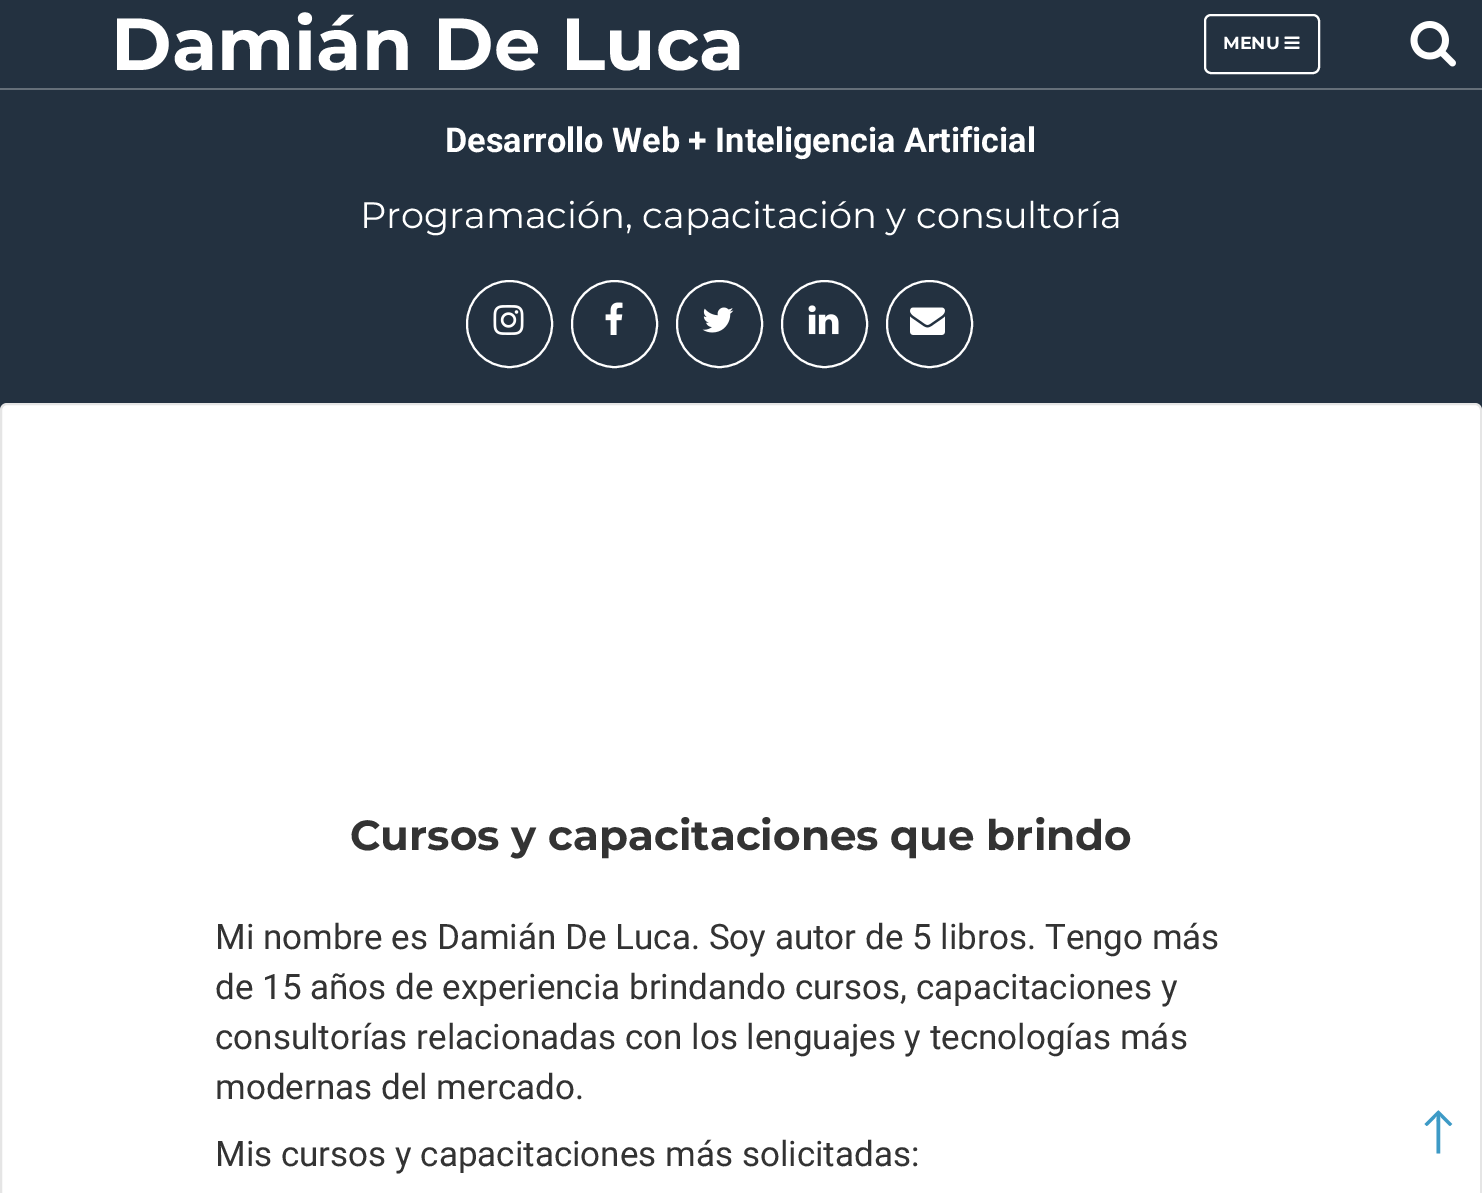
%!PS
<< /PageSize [1482 1193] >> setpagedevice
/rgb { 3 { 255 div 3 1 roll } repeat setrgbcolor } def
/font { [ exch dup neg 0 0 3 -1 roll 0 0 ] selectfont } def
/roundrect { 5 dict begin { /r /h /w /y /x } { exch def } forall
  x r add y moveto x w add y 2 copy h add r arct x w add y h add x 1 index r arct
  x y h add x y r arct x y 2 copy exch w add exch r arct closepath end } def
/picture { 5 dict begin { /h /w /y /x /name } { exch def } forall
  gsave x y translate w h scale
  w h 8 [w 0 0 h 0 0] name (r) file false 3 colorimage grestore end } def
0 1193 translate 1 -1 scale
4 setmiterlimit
35 49 64 rgb
0 0 1482 1193 rectfill
101 111 121 rgb
0 88 1482 2 rectfill
255 255 255 rgb
2 setlinewidth
1205 15 114 58 6 roundrect stroke
(img/1.rgb) 1284 36 16 13 picture
(img/2.rgb) 1410 21 46 46 picture
467 281 85 86 42.5 roundrect stroke
(img/3.rgb) 493 305 31 30 picture
572 281 85 86 42.5 roundrect stroke
(img/4.rgb) 605 302 18 33 picture
677 281 85 86 42.5 roundrect stroke
(img/5.rgb) 702 307 32 26 picture
782 281 85 86 42.5 roundrect stroke
(img/6.rgb) 808 305 31 30 picture
887 281 85 86 42.5 roundrect stroke
(img/7.rgb) 910 307 35 28 picture
1 404 1480 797 6 roundrect gsave fill grestore
229 229 229 rgb
stroke
/Montserrat-Bold 73.5 font
255 255 255 rgb
111 70 moveto (Damián De Luca) show
/Montserrat-Bold 17.5 font
1223 49 moveto (MENU) show
/Roboto-Bold 34.25 font
445 152 moveto (Desarrollo Web + Inteligencia Artificial) show
/Montserrat-Regular 36.75 font
360 228 moveto (Programación, capacitación y consultoría) show
/Montserrat-Bold 42 font
51 51 51 rgb
350 850 moveto (Cursos y capacitaciones que brindo) show
/Roboto-Regular 35 font
[
  [(Mi nombre es Damián De Luca. Soy autor de 5 libros. Tengo más) 215 949]
  [(de 15 años de experiencia brindando cursos, capacitaciones y) 215 999]
  [(consultorías relacionadas con los lenguajes y tecnologías más) 215 1049]
  [(modernas del mercado.) 215 1099]
  [(Mis cursos y capacitaciones más solicitadas:) 215 1166]
] { aload pop moveto show } forall
/Lato-Regular 49 font
61 154 198 rgb
1420 1148 moveto (↑) show
showpage
